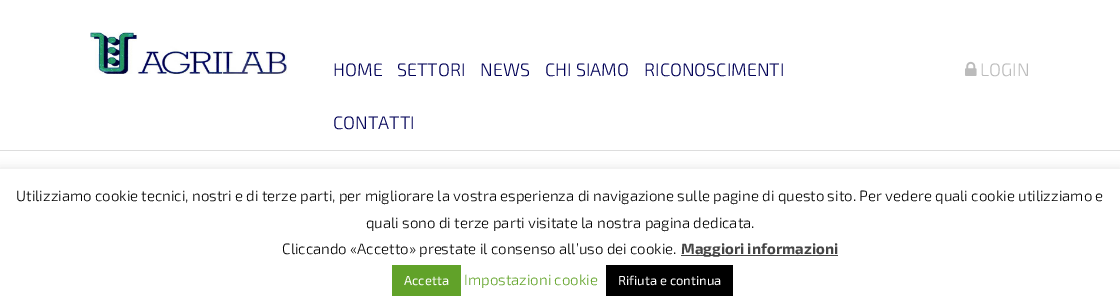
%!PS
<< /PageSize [1120 308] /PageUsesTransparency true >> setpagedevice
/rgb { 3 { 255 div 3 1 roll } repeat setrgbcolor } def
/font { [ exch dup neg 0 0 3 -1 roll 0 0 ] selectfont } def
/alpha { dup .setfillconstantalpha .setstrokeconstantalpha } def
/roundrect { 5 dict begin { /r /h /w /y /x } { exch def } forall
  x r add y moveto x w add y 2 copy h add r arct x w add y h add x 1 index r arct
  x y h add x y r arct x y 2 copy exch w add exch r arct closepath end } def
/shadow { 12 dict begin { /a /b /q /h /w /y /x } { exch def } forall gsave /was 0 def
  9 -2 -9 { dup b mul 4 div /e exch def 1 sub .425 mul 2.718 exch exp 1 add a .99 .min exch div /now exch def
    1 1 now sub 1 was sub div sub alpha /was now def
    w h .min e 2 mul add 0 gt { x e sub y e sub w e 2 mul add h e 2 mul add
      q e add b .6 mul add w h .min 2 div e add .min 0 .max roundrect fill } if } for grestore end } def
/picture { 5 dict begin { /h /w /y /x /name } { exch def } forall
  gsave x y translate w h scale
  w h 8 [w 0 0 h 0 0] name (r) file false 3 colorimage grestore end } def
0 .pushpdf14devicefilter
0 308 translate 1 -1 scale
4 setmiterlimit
255 255 255 rgb
0 0 1120 308 rectfill
(img/1.rgb) 90 32 197 42 picture
(img/2.rgb) 965 61 12 15 picture
221 221 221 rgb
0 150 1120 1 rectfill
172 171 171 rgb
0 168 1120 139 0 5 0.3 shadow
[
  [0 169 1120 139 255 255 255]
  [681 255 157 1 68 68 68]
  [392 265 69 31 97 162 41]
  [606 265 127 31 0 0 0]
] { aload pop rgb rectfill } forall
/Exo2-Light 18 font
0 0 86 rgb
[
  [(HOME) 333 76]
  [(SETTORI) 397 76]
  [(NEWS) 480 76]
  [(CHI SIAMO) 545 76]
  [(RICONOSCIMENTI) 644 76]
  [(CONTATTI) 333 129]
] { aload pop moveto show } forall
187 187 187 rgb
980 76 moveto (LOGIN) show
/Exo2-Light 15 font
0 0 0 rgb
[
  [(Utilizziamo cookie tecnici, nostri e di terze parti, per migliorare la vostra esperienza di navigazione sulle pagine di questo sito. Per vedere quali cookie utilizziamo e) 16 201]
  [(quali sono di terze parti visitate la nostra pagina dedicata.) 366 228]
  [(Cliccando «Accetto» prestate il consenso all’uso dei cookie.) 282 254]
] { aload pop moveto show } forall
/Exo2-Bold 15 font
68 68 68 rgb
681 254 moveto (Maggiori informazioni) show
/Exo2-Regular 13 font
255 255 255 rgb
404 285 moveto (Accetta) show
/Exo2-Light 15 font
98 163 41 rgb
464 285 moveto (Impostazioni cookie) show
/Exo2-Regular 13 font
255 255 255 rgb
618 285 moveto (Rifiuta e continua) show
.poppdf14devicefilter showpage
